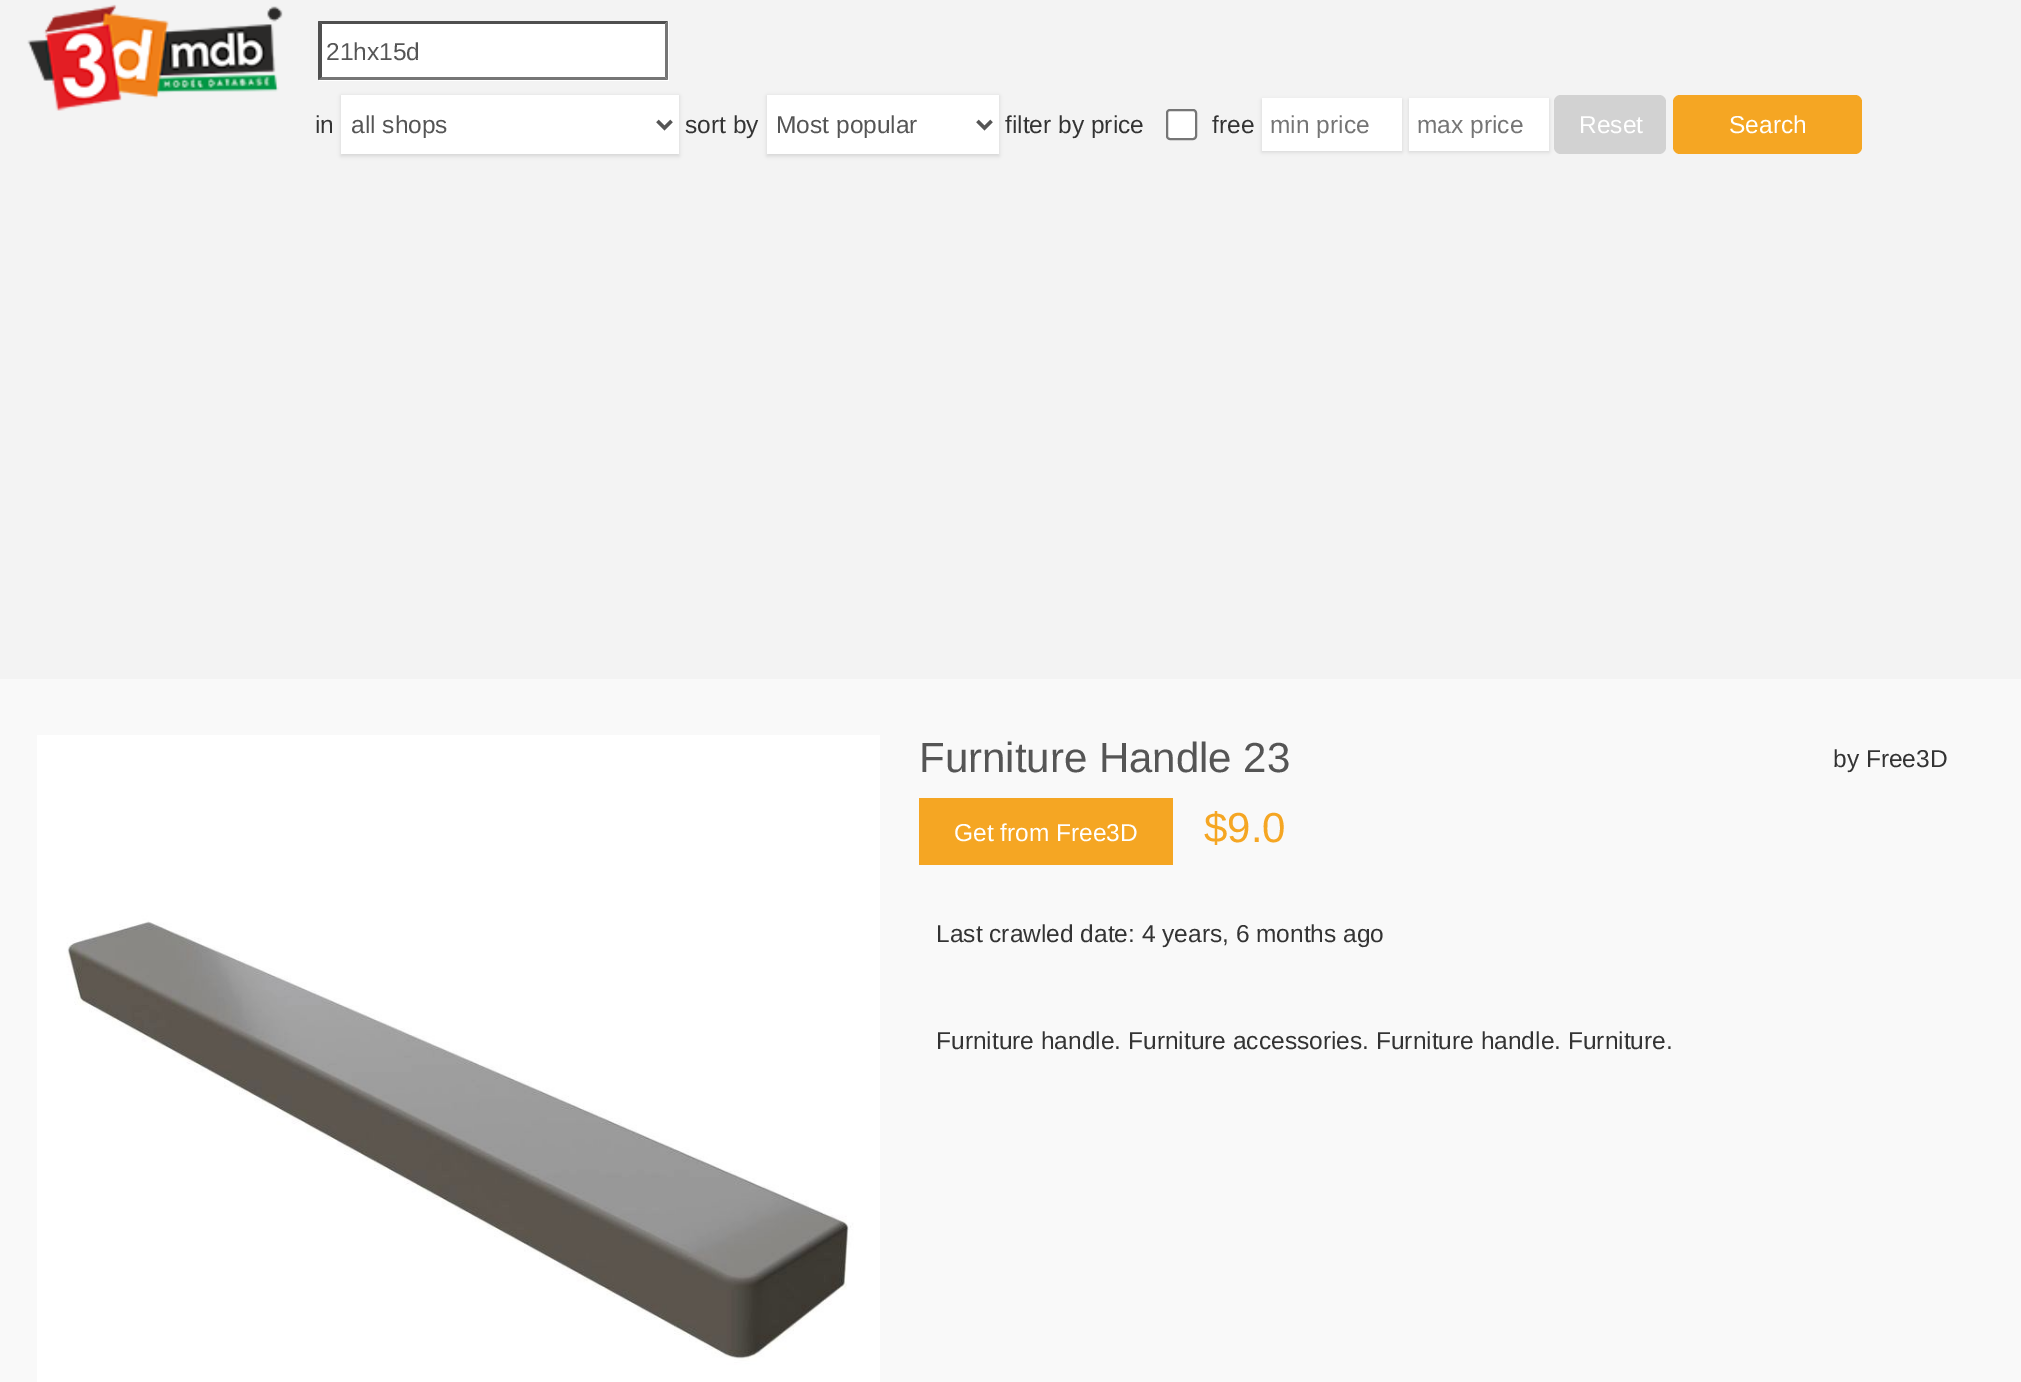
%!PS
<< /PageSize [2021 1382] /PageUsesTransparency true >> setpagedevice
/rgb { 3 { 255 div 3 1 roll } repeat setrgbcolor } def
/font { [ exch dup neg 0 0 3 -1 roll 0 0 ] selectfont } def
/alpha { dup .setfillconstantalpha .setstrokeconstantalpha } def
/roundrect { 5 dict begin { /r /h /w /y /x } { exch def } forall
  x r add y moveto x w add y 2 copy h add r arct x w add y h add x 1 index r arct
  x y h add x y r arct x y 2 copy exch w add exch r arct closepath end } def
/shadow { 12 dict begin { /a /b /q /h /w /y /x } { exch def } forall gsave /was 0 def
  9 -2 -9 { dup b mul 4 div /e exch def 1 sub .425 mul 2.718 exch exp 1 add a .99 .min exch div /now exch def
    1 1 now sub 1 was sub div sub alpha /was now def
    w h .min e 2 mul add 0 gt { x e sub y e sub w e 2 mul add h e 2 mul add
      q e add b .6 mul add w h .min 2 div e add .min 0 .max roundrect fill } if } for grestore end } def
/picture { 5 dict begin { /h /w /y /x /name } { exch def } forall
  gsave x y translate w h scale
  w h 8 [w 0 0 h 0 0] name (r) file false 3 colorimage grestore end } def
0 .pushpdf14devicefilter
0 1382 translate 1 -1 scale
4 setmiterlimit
249 249 249 rgb
0 0 2021 1382 rectfill
243 243 243 rgb
0 0 2021 679 rectfill
(img/1.rgb) 27 4 256 107 picture
255 255 255 rgb
319 21 350 60 rectfill
79 79 79 rgb
318 21 moveto 668 21 lineto 665 24 lineto 322 24 lineto closepath fill
118 118 118 rgb
668 21 moveto 668 80 lineto 665 77 lineto 665 24 lineto closepath fill
668 80 moveto 318 80 lineto 322 77 lineto 665 77 lineto closepath fill
79 79 79 rgb
318 80 moveto 318 21 lineto 322 24 lineto 322 77 lineto closepath fill
0 0 0 rgb
341 96 338 60 0 2 0.12 shadow
255 255 255 rgb
341 95 338 59 rectfill
85 85 85 rgb
3.5 setlinewidth
657.5 121 moveto 664.5 128 lineto 671.5 121 lineto stroke
0 0 0 rgb
767 96 232 60 0 2 0.12 shadow
255 255 255 rgb
767 95 232 59 rectfill
85 85 85 rgb
977.5 121 moveto 984.5 128 lineto 991.5 121 lineto stroke
255 255 255 rgb
1167 110 29 29 3 roundrect gsave fill grestore
118 118 118 rgb
2 setlinewidth
stroke
0 0 0 rgb
1262 100 140 52 0 2 0.12 shadow
255 255 255 rgb
1262 98 140 53 rectfill
0 0 0 rgb
1409 100 140 52 0 2 0.12 shadow
255 255 255 rgb
1409 98 140 53 rectfill
210 210 210 rgb
1554 95 112 59 7 roundrect fill
245 166 35 rgb
1673 95 189 59 7 roundrect fill
(img/2.rgb) 37 735 843 647 picture
919 798 254 67 rectfill
/LiberationSans-Regular 24.5 font
85 85 85 rgb
326 60 moveto (21hx15d) show
51 51 51 rgb
315 133 moveto (in) show
85 85 85 rgb
351 133 moveto (all shops) show
51 51 51 rgb
685 133 moveto (sort by) show
85 85 85 rgb
776 133 moveto (Most popular) show
51 51 51 rgb
1005 133 moveto (filter by price) show
1212 133 moveto (free) show
117 117 117 rgb
1270 133 moveto (min price) show
1417 133 moveto (max price) show
255 255 255 rgb
1579 133 moveto (Reset) show
1729 133 moveto (Search) show
/LiberationSans-Regular 42 font
85 85 85 rgb
919 772 moveto (Furniture Handle 23) show
/LiberationSans-Regular 24.5 font
51 51 51 rgb
1833 767 moveto (by Free3D) show
255 255 255 rgb
954 841 moveto (Get from Free3D) show
/LiberationSans-Regular 42 font
245 166 35 rgb
1204 842 moveto ($9.0) show
/LiberationSans-Regular 24.5 font
51 51 51 rgb
936 942 moveto (Last crawled date: 4 years, 6 months ago) show
936 1049 moveto (Furniture handle. Furniture accessories. Furniture handle. Furniture.) show
.poppdf14devicefilter showpage
